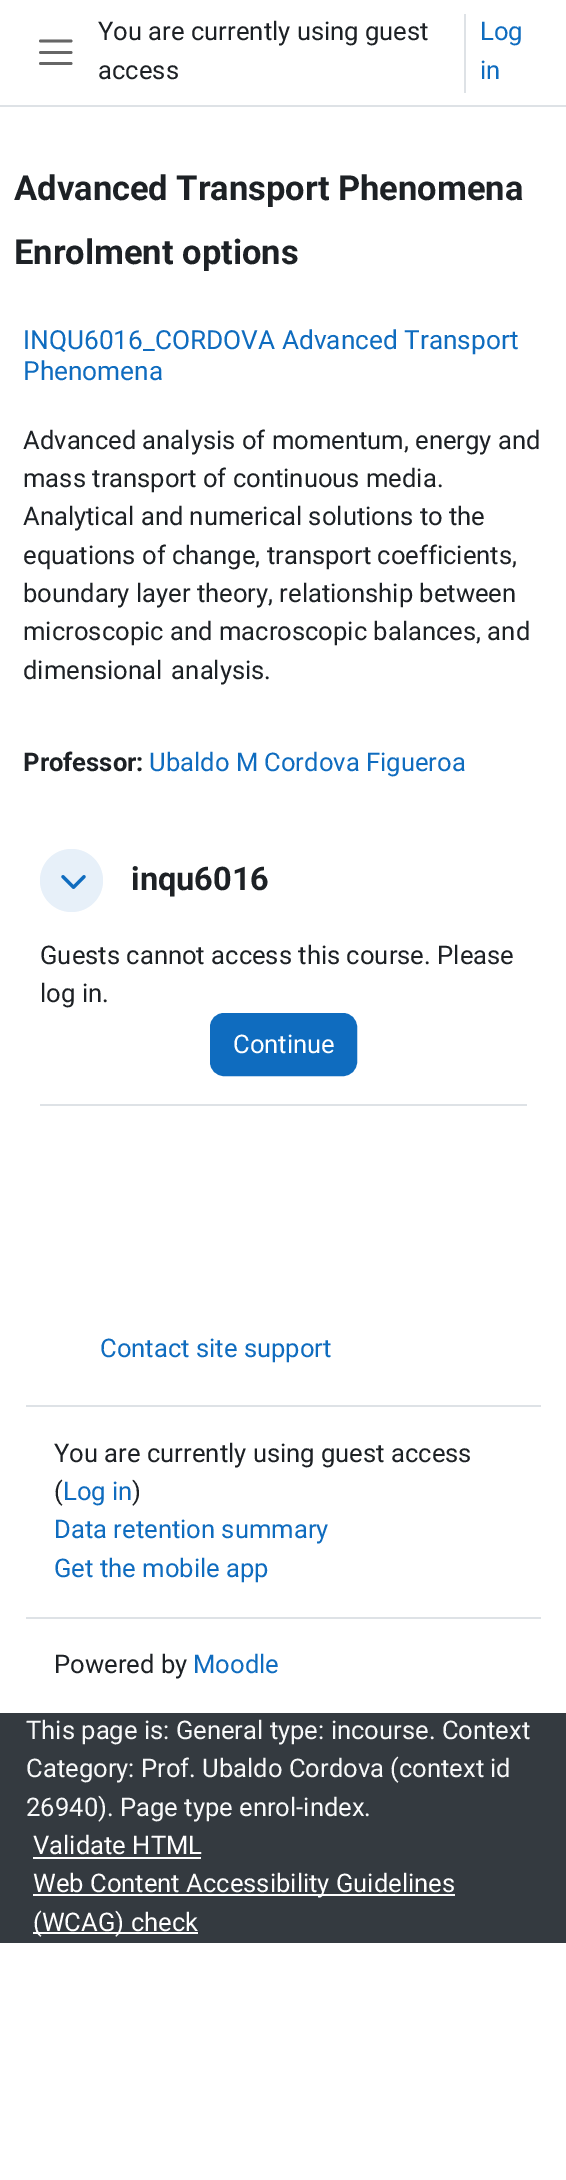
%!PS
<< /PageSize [566 2180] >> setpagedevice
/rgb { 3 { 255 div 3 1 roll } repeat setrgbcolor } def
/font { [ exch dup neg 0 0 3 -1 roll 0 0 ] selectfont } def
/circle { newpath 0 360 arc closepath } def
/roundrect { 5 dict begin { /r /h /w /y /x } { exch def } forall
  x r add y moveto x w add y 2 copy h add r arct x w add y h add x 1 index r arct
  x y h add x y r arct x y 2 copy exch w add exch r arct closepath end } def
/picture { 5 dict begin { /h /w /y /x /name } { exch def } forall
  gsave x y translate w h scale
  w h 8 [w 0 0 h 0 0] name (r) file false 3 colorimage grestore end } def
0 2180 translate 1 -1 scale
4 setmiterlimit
255 255 255 rgb
0 0 566 2180 rectfill
222 226 230 rgb
0 105 566 2 rectfill
102 102 102 rgb
2.8 setlinewidth
1 setlinecap
40.5 41 moveto 71 41 lineto 40.5 52.5 moveto 71 52.5 lineto 40.5 63.5 moveto 71 63.5 lineto stroke
222 226 230 rgb
464 14 2 79 rectfill
40 1104 487 2 rectfill
231 240 249 rgb
71.5 880.5 31.5 circle fill
(img/1.rgb) 61 875 25 14 picture
15 108 191 rgb
211 1014 145 61 13 roundrect gsave fill grestore
2 setlinewidth
0 setlinecap
stroke
[
  [26 1405 515 2 222 226 230]
  [26 1617 515 2 222 226 230]
  [0 1713 566 230 52 58 64]
  [33 1857 168 2 255 255 255]
  [33 1894 422 2 255 255 255]
  [33 1932 165 2 255 255 255]
] { aload pop rgb rectfill } forall
/Roboto-Regular 25.6 font
29 33 37 rgb
98 40 moveto (You are currently using guest) show
15 108 191 rgb
480 40 moveto (Log) show
480 79 moveto (in) show
29 33 37 rgb
98 79 moveto (access) show
/Roboto-Bold 34.5 font
14 200 moveto (Advanced Transport Phenomena) show
14 264 moveto (Enrolment options) show
/Roboto-Regular 26.25 font
15 108 191 rgb
23 349 moveto (INQU6016_CORDOVA Advanced Transport) show
23 380 moveto (Phenomena) show
/Roboto-Regular 25.6 font
29 33 37 rgb
[
  [(Advanced analysis of momentum, energy and) 23 449]
  [(mass transport of continuous media.) 23 487]
  [(Analytical and numerical solutions to the) 23 525]
  [(equations of change, transport coefficients,) 23 564]
  [(boundary layer theory, relationship between) 23 602]
  [(microscopic and macroscopic balances, and) 23 640]
] { aload pop moveto show } forall
23 679 moveto 3 0 32 (dimensional analysis.) widthshow
/Roboto-Bold 25.6 font
23 771 moveto (Professor:) show
/Roboto-Regular 25.6 font
15 108 191 rgb
149 771 moveto (Ubaldo M Cordova Figueroa) show
/Roboto-Bold 32.5 font
29 33 37 rgb
131 890 moveto (inqu6016) show
/Roboto-Regular 25.6 font
40 964 moveto (Guests cannot access this course. Please) show
40 1002 moveto (log in.) show
255 255 255 rgb
233 1053 moveto (Continue) show
15 108 191 rgb
100 1357 moveto (Contact site support) show
29 33 37 rgb
54 1462 moveto (You are currently using guest access) show
54 1500 moveto (\() show
15 108 191 rgb
63 1500 moveto (Log in) show
29 33 37 rgb
132 1500 moveto (\)) show
15 108 191 rgb
54 1538 moveto (Data retention summary) show
54 1577 moveto (Get the mobile app) show
29 33 37 rgb
54 1673 moveto (Powered by) show
15 108 191 rgb
193 1673 moveto (Moodle) show
248 249 250 rgb
[
  [(This page is: General type: incourse. Context) 26 1739]
  [(Category: Prof. Ubaldo Cordova) 26 1777]
  [(\(context id) 390 1777]
  [(26940\). Page type enrol-index.) 26 1816]
] { aload pop moveto show } forall
255 255 255 rgb
[
  [(Validate HTML) 33 1854]
  [(Web Content Accessibility Guidelines) 33 1892]
  [(\(WCAG\) check) 33 1931]
] { aload pop moveto show } forall
showpage
